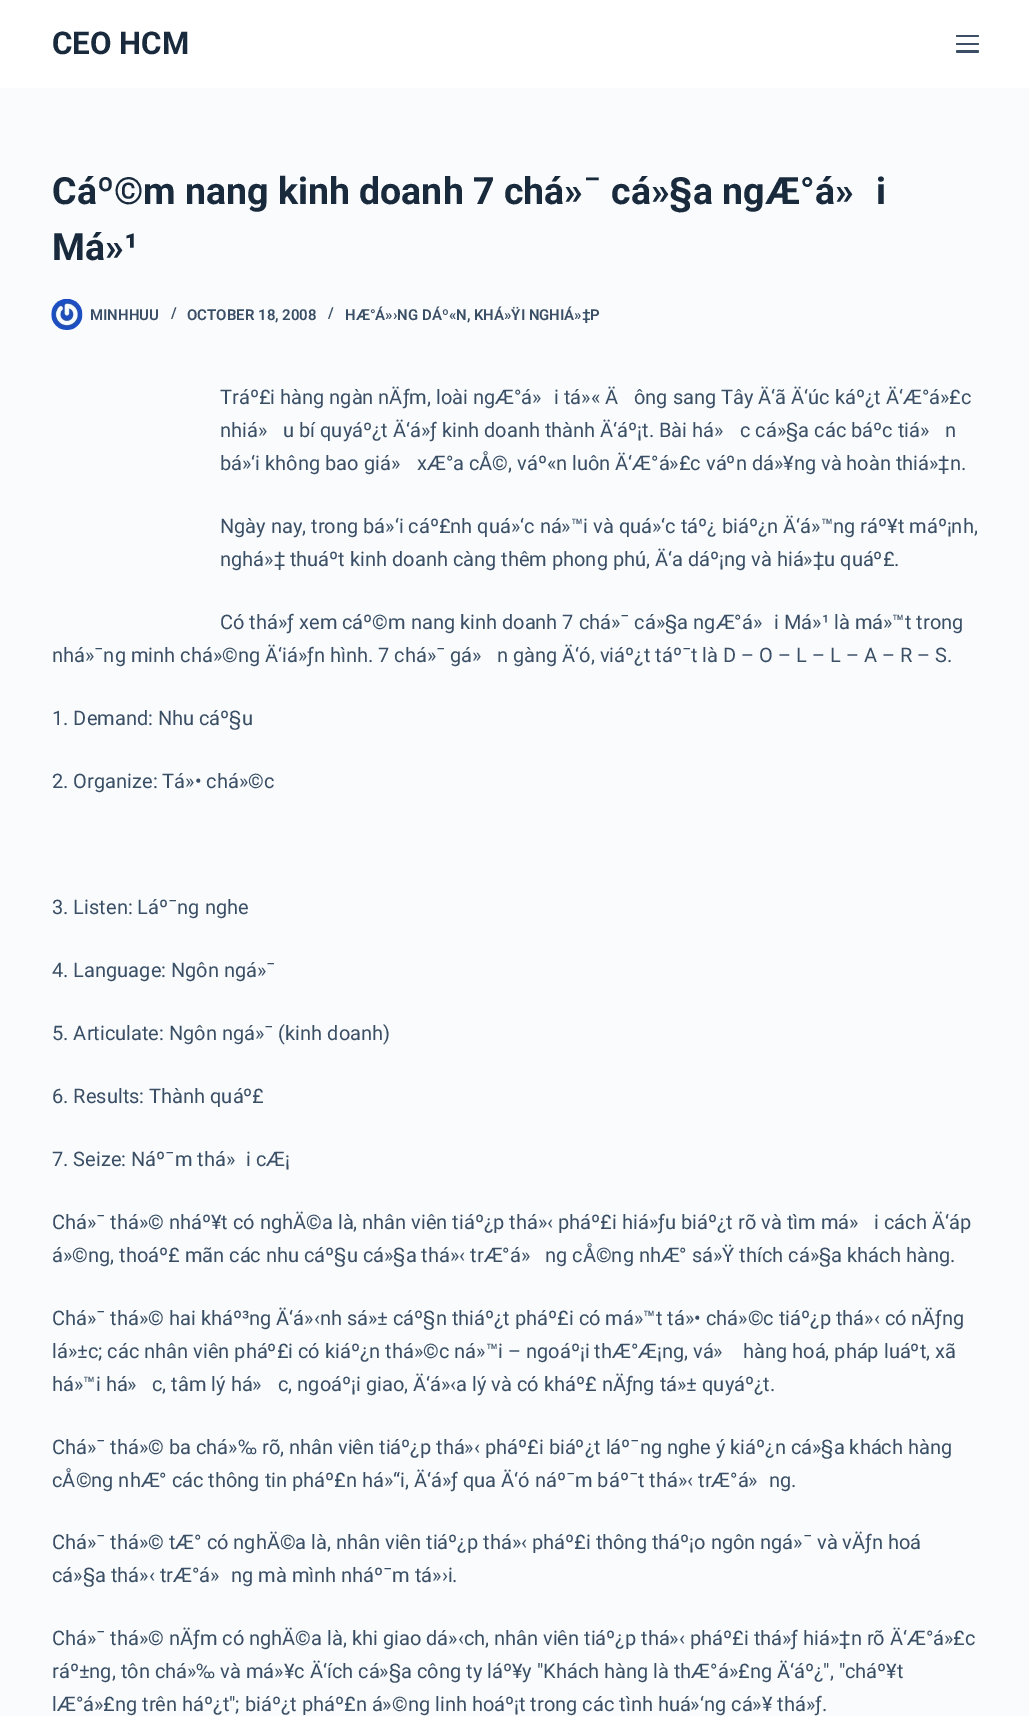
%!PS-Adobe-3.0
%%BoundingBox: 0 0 1029 1716
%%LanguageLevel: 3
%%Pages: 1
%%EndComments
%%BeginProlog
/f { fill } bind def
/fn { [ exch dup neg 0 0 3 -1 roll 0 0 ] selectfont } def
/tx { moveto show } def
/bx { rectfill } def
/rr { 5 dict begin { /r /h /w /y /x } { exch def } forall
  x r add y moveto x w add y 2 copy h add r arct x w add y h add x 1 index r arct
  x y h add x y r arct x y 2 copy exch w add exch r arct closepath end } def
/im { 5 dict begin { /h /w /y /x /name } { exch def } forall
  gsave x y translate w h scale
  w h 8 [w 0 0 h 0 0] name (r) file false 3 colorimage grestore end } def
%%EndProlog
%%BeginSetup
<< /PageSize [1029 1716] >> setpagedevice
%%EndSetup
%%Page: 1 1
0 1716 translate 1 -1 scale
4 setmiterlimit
0.98 0.984 0.988 setrgbcolor
0 0 1029 1716 bx
1 setgray
0 0 1029 88 bx
/Roboto-Bold 31.25 fn
0.098 0.165 0.239 setrgbcolor
(CEO HCM) 52 54 tx
0.227 0.31 0.4 setrgbcolor
956 35 23 2 1 rr f
956 43 23 2 1 rr f
956 50 23 3 1.5 rr f
/Roboto-Bold 37.5 fn
0.098 0.165 0.239 setrgbcolor
(Cáº©m nang kinh doanh 7 chá»¯ cá»§a ngÆ°á») 52 204 tx
(i) 876 204 tx
(Má»¹) 52 260 tx
(image0.raw) 51 298 32 32 im
/Roboto-SemiBold 15 fn
0.227 0.31 0.4 setrgbcolor
(MINHHUU) 90 320 tx
(/) 171 318 tx
(OCTOBER 18, 2008) 187 320 tx
(/) 328 318 tx
(HÆ°Á»›NG DÁº«N, KHÁ»ŸI NGHIÁ»‡P) 345 320 tx
/Roboto-Regular 20 fn
(Tráº£i hàng ngàn nÄƒm, loài ngÆ°á») 220 404 tx
(i tá»« Ä) 554 404 tx
(ông sang Tây Ä‘ã Ä‘úc káº¿t Ä‘Æ°á»£c) 634 404 tx
(nhiá») 220 437 tx
(u bí quyáº¿t Ä‘á»ƒ kinh doanh thành Ä‘áº¡t. Bài há») 283 437 tx
(c cá»§a các báºc tiá») 740 437 tx
(n) 945 437 tx
(bá»‘i không bao giá») 220 470 tx
(xÆ°a cÅ©, váº«n luôn Ä‘Æ°á»£c váºn dá»¥ng và hoàn thiá»‡n.) 417 470 tx
(Ngày nay, trong bá»‘i cáº£nh quá»‘c ná»™i và quá»‘c táº¿ biáº¿n Ä‘á»™ng ráº¥t máº¡nh,) 220 533 tx
(nghá»‡ thuáºt kinh doanh càng thêm phong phú, Ä‘a dáº¡ng và hiá»‡u quáº£.) 220 566 tx
(Có thá»ƒ xem cáº©m nang kinh doanh 7 chá»¯ cá»§a ngÆ°á») 220 629 tx
(i Má»¹ là má»™t trong) 774 629 tx
(nhá»¯ng minh chá»©ng Ä‘iá»ƒn hình. 7 chá»¯ gá») 52 662 tx
(n gàng Ä‘ó, viáº¿t táº¯t là D – O – L – L – A – R – S.) 497 662 tx
(1. Demand: Nhu cáº§u) 52 725 tx
(2. Organize: Tá»• chá»©c) 52 788 tx
(3. Listen: Láº¯ng nghe) 52 914 tx
(4. Language: Ngôn ngá»¯) 52 977 tx
(5. Articulate: Ngôn ngá»¯ \(kinh doanh\)) 52 1040 tx
(6. Results: Thành quáº£) 52 1103 tx
(7. Seize: Náº¯m thá») 52 1166 tx
(i cÆ¡) 246 1166 tx
(Chá»¯ thá»© nháº¥t có nghÄ©a là, nhân viên tiáº¿p thá»‹ pháº£i hiá»ƒu biáº¿t rõ và tìm má») 52 1229 tx
(i cách Ä‘áp) 874 1229 tx
(á»©ng, thoáº£ mãn các nhu cáº§u cá»§a thá»‹ trÆ°á») 52 1262 tx
(ng cÅ©ng nhÆ° sá»Ÿ thích cá»§a khách hàng.) 545 1262 tx
(Chá»¯ thá»© hai kháº³ng Ä‘á»‹nh sá»± cáº§n thiáº¿t pháº£i có má»™t tá»• chá»©c tiáº¿p thá»‹ có nÄƒng) 52 1325 tx
(lá»±c; các nhân viên pháº£i có kiáº¿n thá»©c ná»™i – ngoáº¡i thÆ°Æ¡ng, vá») 52 1358 tx
(hàng hoá, pháp luáºt, xã) 743 1358 tx
(há»™i há») 52 1391 tx
(c, tâm lý há») 152 1391 tx
(c, ngoáº¡i giao, Ä‘á»‹a lý và có kháº£ nÄƒng tá»± quyáº¿t.) 278 1391 tx
(Chá»¯ thá»© ba chá»‰ rõ, nhân viên tiáº¿p thá»‹ pháº£i biáº¿t láº¯ng nghe ý kiáº¿n cá»§a khách hàng) 52 1454 tx
(cÅ©ng nhÆ° các thông tin pháº£n há»“i, Ä‘á»ƒ qua Ä‘ó náº¯m báº¯t thá»‹ trÆ°á») 52 1487 tx
(ng.) 769 1487 tx
(Chá»¯ thá»© tÆ° có nghÄ©a là, nhân viên tiáº¿p thá»‹ pháº£i thông tháº¡o ngôn ngá»¯ và vÄƒn hoá) 52 1549 tx
(cá»§a thá»‹ trÆ°á») 52 1582 tx
(ng mà mình nháº¯m tá»›i.) 231 1582 tx
(Chá»¯ thá»© nÄƒm có nghÄ©a là, khi giao dá»‹ch, nhân viên tiáº¿p thá»‹ pháº£i thá»ƒ hiá»‡n rõ Ä‘Æ°á»£c) 52 1645 tx
(ráº±ng, tôn chá»‰ và má»¥c Ä‘ích cá»§a công ty láº¥y "Khách hàng là thÆ°á»£ng Ä‘áº¿", "cháº¥t) 52 1678 tx
(lÆ°á»£ng trên háº¿t"; biáº¿t pháº£n á»©ng linh hoáº¡t trong các tình huá»‘ng cá»¥ thá»ƒ.) 52 1711 tx
showpage
%%EOF
